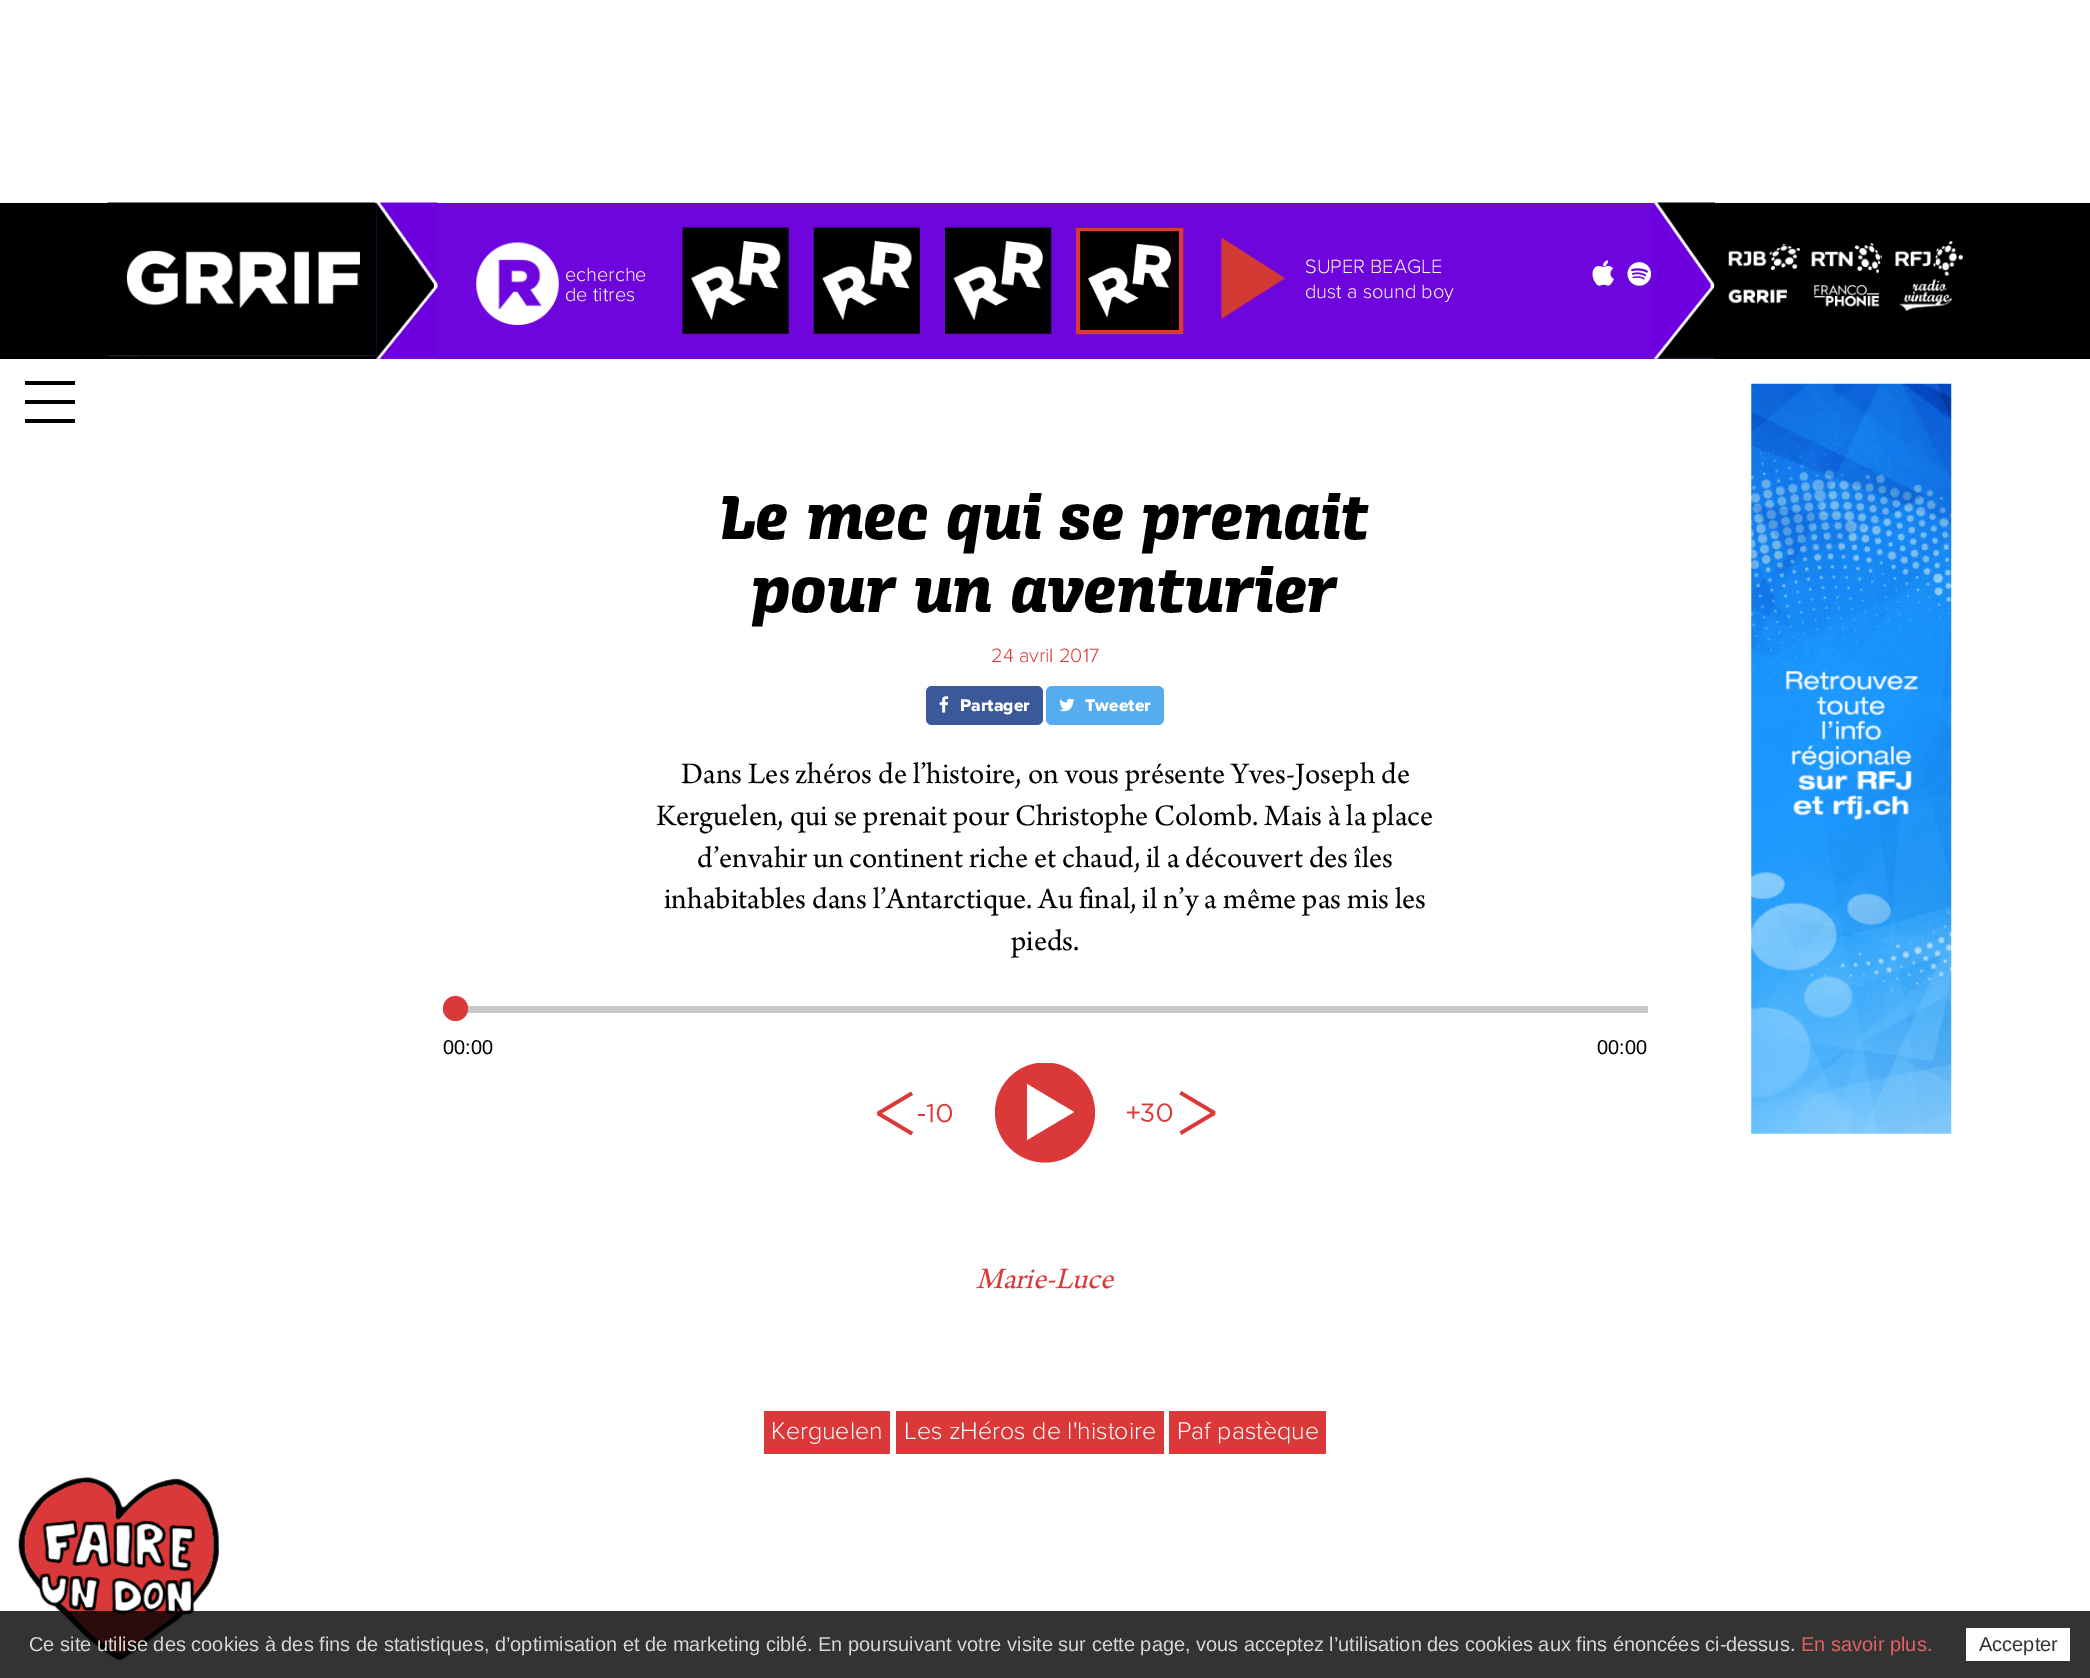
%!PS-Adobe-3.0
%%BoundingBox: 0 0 2090 1678
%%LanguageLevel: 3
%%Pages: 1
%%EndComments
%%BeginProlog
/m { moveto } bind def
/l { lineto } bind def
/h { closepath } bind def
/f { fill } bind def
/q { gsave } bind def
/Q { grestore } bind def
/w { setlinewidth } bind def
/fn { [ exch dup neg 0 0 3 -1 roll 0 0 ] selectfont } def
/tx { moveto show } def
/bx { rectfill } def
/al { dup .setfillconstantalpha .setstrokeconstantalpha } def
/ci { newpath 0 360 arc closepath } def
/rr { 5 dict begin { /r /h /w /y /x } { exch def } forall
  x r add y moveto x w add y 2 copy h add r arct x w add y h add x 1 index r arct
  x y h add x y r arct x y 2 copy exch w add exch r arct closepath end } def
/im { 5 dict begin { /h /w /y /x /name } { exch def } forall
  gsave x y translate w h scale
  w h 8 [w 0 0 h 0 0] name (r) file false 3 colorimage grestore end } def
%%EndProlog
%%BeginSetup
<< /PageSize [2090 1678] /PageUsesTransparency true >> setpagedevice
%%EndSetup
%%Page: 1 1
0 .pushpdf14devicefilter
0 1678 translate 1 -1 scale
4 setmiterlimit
1 setgray
0 0 2090 1678 bx
0 setgray
0 203 2090 156 bx
0.427 0.02 0.863 setrgbcolor
376 203 1338 156 bx
(image0.raw) 107 202 268 155 im
(image1.raw) 376 202 62 157 im
(image2.raw) 476 242 83 83 im
/ProximaNova-Light 20 fn
1 setgray
(echerche) 565 281 tx
(de titres) 565 301 tx
(image3.raw) 682 227 107 107 im
(image4.raw) 813 227 107 107 im
(image5.raw) 945 227 107 107 im
0.859 0.224 0.224 setrgbcolor
4 w
1078 230 103 102 rectstroke
(image6.raw) 1080 231 99 99 im
(image7.raw) 1221 237 64 82 im
1 setgray
(SUPER BEAGLE) 1305 273 tx
(dust a sound boy) 1305 298 tx
(image8.raw) 1592 260 22 26 im
(image9.raw) 1627 262 25 24 im
(image10.raw) 1653 202 62 157 im
(image11.raw) 1728 244 72 26 im
(image12.raw) 1811 243 71 30 im
(image13.raw) 1895 241 68 35 im
(image14.raw) 1728 289 59 15 im
(image15.raw) 1814 285 66 22 im
(image16.raw) 1899 279 53 32 im
(image17.raw) 1751 383 201 751 im
0 setgray
25 381 50 4 bx
25 400 50 4 bx
25 419 50 4 bx
/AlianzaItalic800-Regular 66.25 fn
(Le mec qui se prenait) 720 539 tx
(pour un aventurier) 752 612 tx
/ProximaNova-Light 20 fn
0.859 0.224 0.224 setrgbcolor
(24 avril 2017) 991 662 tx
0.231 0.349 0.596 setrgbcolor
926 686 117 39 6 rr f
(image18.raw) 939 696 10 17 im
/ProximaNova-ExtraBold 17.5 fn
1 setgray
(Partager) 960 711 tx
0.333 0.675 0.933 setrgbcolor
1046 686 118 39 6 rr f
(image19.raw) 1059 698 16 14 im
1 setgray
(Tweeter) 1085 711 tx
/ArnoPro-Regular 31.25 fn
0 setgray
(Dans Les zhéros de l’histoire, on vous présente Yves-Joseph de) 681 783 tx
(Kerguelen, qui se prenait pour Christophe Colomb. Mais à la place) 656 825 tx
(d’envahir un continent riche et chaud, il a découvert des îles) 697 867 tx
(inhabitables dans l’Antarctique. Au final, il n’y a même pas mis les) 664 908 tx
(pieds.) 1011 950 tx
0.784 setgray
443 1006 1205 7 bx
0.859 0.224 0.224 setrgbcolor
455.5 1008.5 12.5 ci f
/LiberationSans-Regular 20 fn
0 setgray
(00:00) 443 1054 tx
(00:00) 1597 1054 tx
(image20.raw) 877 1091 76 45 im
q
995 1063 100 100 rectclip
0.859 0.224 0.224 setrgbcolor
1045 1112.5 50 ci f
Q
1 setgray
1027 1140 m 1027 1084 l 1074 1112 l h f
(image21.raw) 1126 1091 90 44 im
/ArnoPro-Italic 31.25 fn
0.859 0.224 0.224 setrgbcolor
(Marie-Luce) 976 1288 tx
764 1411 126 43 bx
/ProximaNova-Light 25 fn
1 setgray
(Kerguelen) 771 1439 tx
0.859 0.224 0.224 setrgbcolor
896 1411 268 43 bx
1 setgray
(Les zHéros de l'histoire) 904 1439 tx
0.859 0.224 0.224 setrgbcolor
1169 1411 157 43 bx
1 setgray
(Paf pastèque) 1177 1439 tx
(image22.raw) 18 1477 201 184 im
0.8 al
0 setgray
0 1611 2090 67 bx
/LiberationSans-Regular 20 fn
1 al
0.839 setgray
(Ce site utilise des cookies à des fins de statistiques, d’optimisation et de marketing ciblé. En poursuivant votre visite sur cette page, vous acceptez l’utilisation des cookies aux fins énoncées ci-dessus.) 29 1651 tx
0.886 0.38 0.38 setrgbcolor
(En savoir plus.) 1801 1651 tx
1 setgray
1966 1628 104 33 bx
0.2 setgray
(Accepter) 1979 1651 tx
.poppdf14devicefilter showpage
%%EOF
